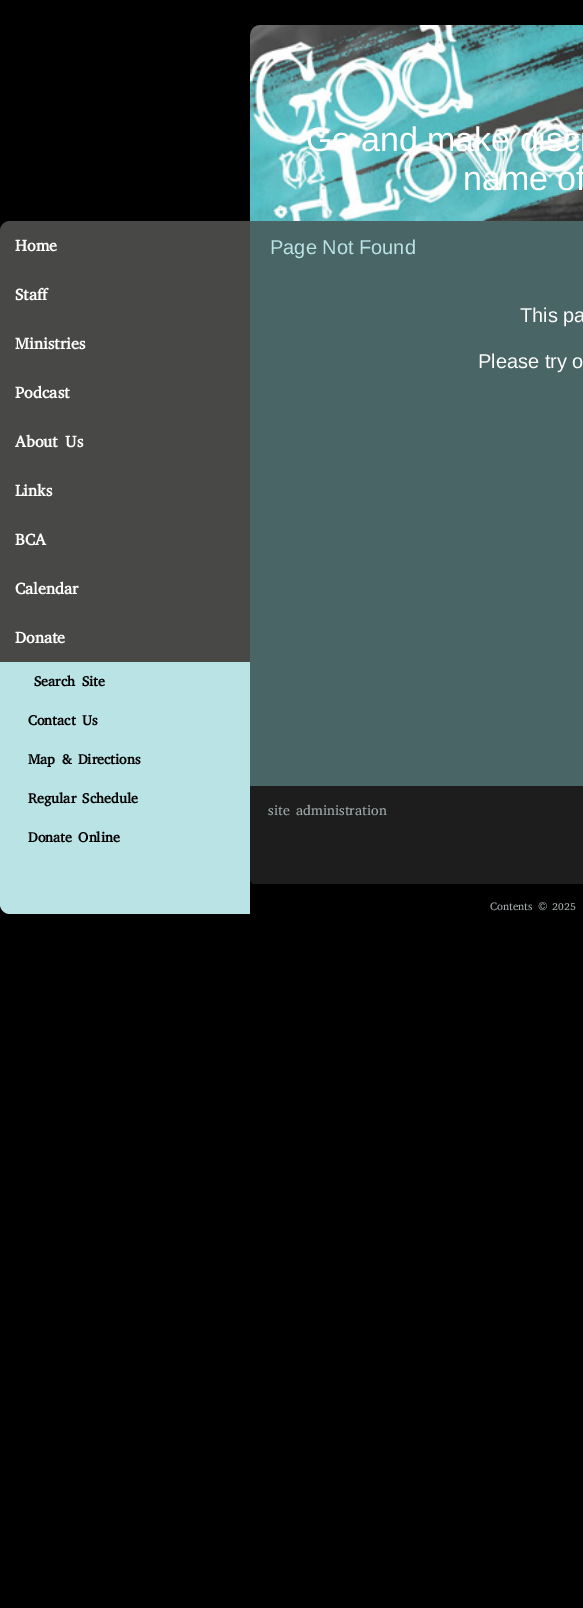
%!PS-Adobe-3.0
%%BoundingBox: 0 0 583 1608
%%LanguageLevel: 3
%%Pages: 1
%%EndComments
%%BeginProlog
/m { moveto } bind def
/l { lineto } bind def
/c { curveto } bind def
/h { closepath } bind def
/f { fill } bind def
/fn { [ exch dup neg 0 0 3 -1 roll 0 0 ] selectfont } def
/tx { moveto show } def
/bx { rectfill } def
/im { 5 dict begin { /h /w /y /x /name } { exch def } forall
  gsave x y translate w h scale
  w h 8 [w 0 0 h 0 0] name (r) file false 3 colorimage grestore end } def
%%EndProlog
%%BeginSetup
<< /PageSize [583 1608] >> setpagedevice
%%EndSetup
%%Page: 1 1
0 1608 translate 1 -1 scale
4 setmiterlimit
0 setgray
0 0 583 1608 bx
(image0.raw) 250 25 333 196 im
/LiberationSans-Regular 34 fn
1 setgray
(Go and make disci) 306 151 tx
(name of) 463 190 tx
0.282 0.282 0.275 setrgbcolor
10 221 m 250 221 l 250 270 l 0 270 l 0 231 l 0 225.5 4.5 221 10 221 c h f
/AbyssinicaSIL-Bold 16 fn
1 setgray
(Home) 15 251 tx
0.282 0.282 0.275 setrgbcolor
0 270 250 392 bx
1 setgray
(Staff) 15 300 tx
(Ministries) 15 349 tx
(Podcast) 15 398 tx
(About Us) 15 447 tx
(Links) 15 496 tx
(BCA) 15 545 tx
(Calendar) 15 594 tx
(Donate) 15 643 tx
0.725 0.89 0.898 setrgbcolor
0 662 250 195 bx
/AbyssinicaSIL-Bold 14 fn
0 setgray
(Search Site) 34 686 tx
(Contact Us) 28 725 tx
(Map & Directions) 28 764 tx
(Regular Schedule) 28 803 tx
(Donate Online) 28 842 tx
0.725 0.89 0.898 setrgbcolor
0 857 m 250 857 l 250 914 l 10 914 l 4.5 914 0 909.5 0 904 c h f
0.286 0.396 0.396 setrgbcolor
250 221 333 565 bx
/LiberationSans-Regular 20 fn
0.725 0.89 0.898 setrgbcolor
(Page Not Found) 270 254 tx
1 setgray
(This pa) 520 322 tx
(Please try o) 478 368 tx
0.114 setgray
250 786 m 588 786 l 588 879 l 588 882 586 884 583 884 c 255 884 l 252 884 250 882 250 879 c h f
/AbyssinicaSIL-Regular 14 fn
0.639 0.675 0.675 setrgbcolor
(site administration) 268 815 tx
/AbyssinicaSIL-Regular 11 fn
(Contents © 2025) 490 910 tx
showpage
%%EOF
